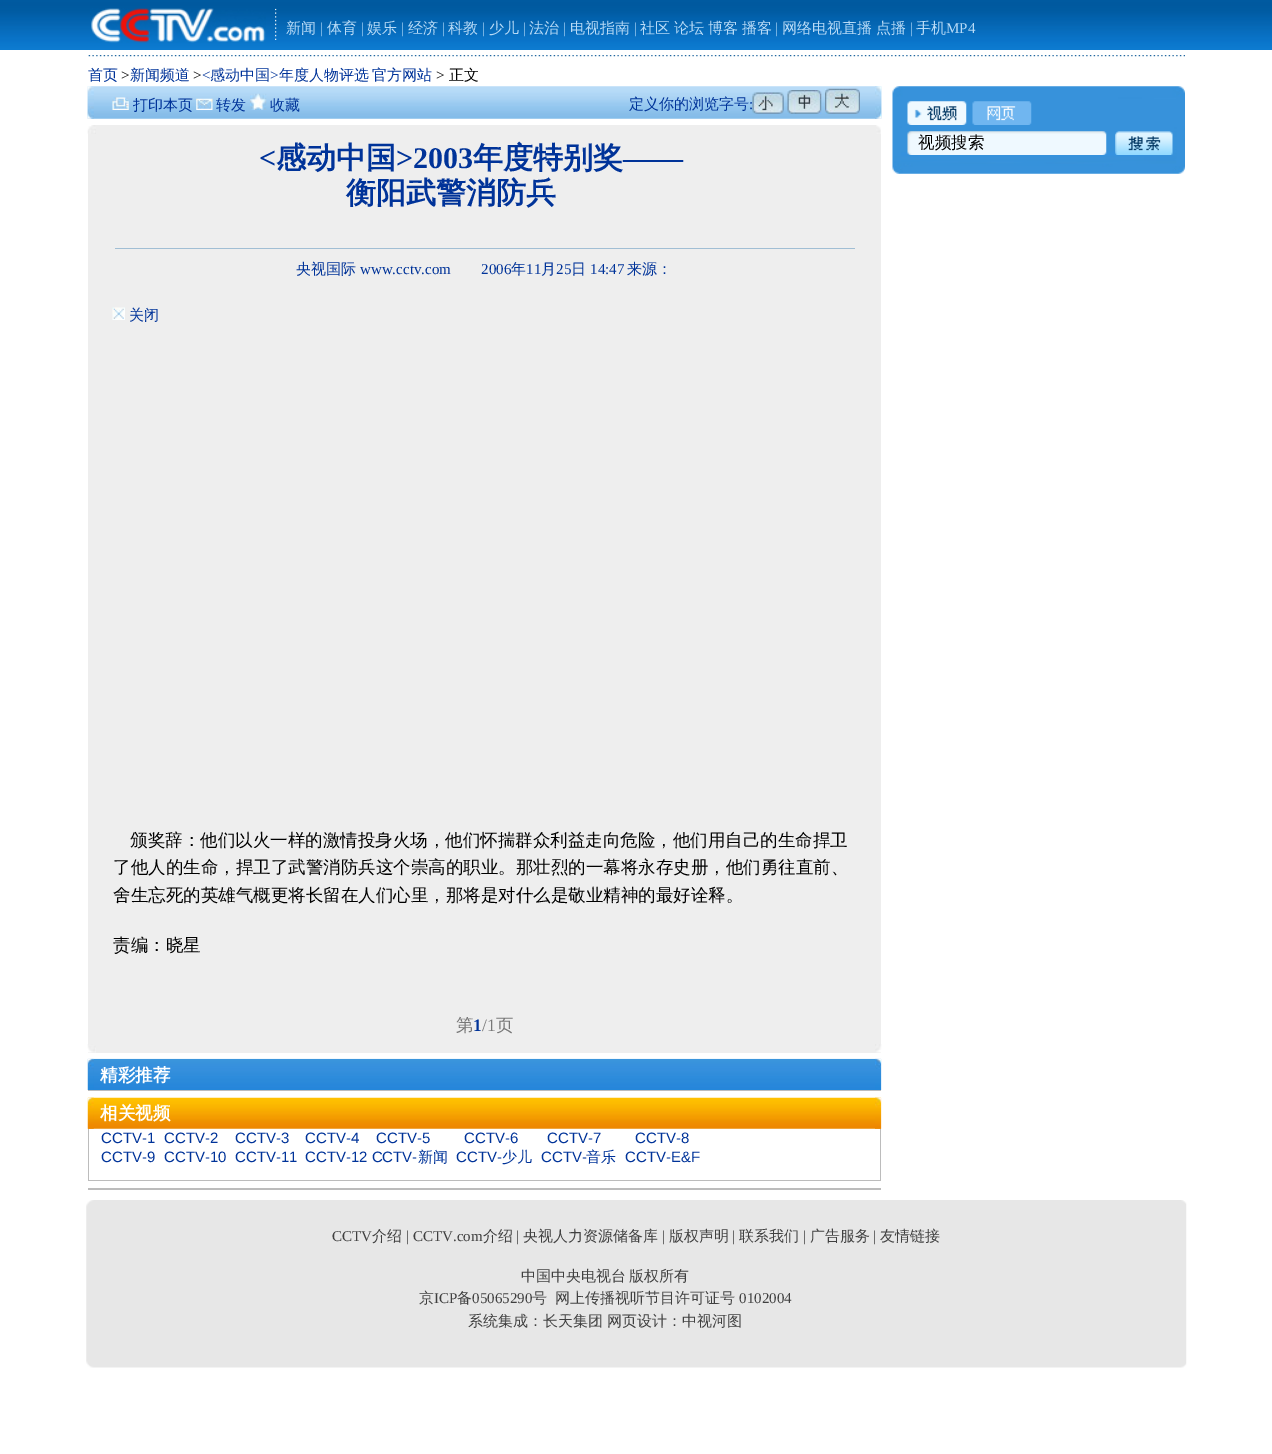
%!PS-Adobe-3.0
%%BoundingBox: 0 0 1272 1454
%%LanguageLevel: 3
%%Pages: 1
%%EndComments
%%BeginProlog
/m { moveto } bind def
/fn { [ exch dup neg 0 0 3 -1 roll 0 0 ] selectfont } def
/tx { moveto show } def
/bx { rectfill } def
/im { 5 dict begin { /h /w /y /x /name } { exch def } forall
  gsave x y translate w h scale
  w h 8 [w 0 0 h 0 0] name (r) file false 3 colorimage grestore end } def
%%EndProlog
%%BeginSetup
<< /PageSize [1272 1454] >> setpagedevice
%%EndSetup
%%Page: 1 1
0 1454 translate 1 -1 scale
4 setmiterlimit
1 setgray
0 0 1272 1454 bx
(image0.raw) 0 0 1272 50 im
(image1.raw) 90 8 176 35 im
(image2.raw) 275 8 2 32 im
/WenQuanYiZenHei-Medium 15 fn
0.722 0.859 0.969 setrgbcolor
(新闻) 286 33 tx
/LiberationSerif-Regular 15 fn
0.604 0.792 0.941 setrgbcolor
(|) 320 33 tx
/WenQuanYiZenHei-Medium 15 fn
0.722 0.859 0.969 setrgbcolor
(体育) 327 33 tx
/LiberationSerif-Regular 15 fn
0.604 0.792 0.941 setrgbcolor
(|) 361 33 tx
/WenQuanYiZenHei-Medium 15 fn
0.722 0.859 0.969 setrgbcolor
(娱乐) 367 33 tx
/LiberationSerif-Regular 15 fn
0.604 0.792 0.941 setrgbcolor
(|) 401 33 tx
/WenQuanYiZenHei-Medium 15 fn
0.722 0.859 0.969 setrgbcolor
(经济) 408 33 tx
/LiberationSerif-Regular 15 fn
0.604 0.792 0.941 setrgbcolor
(|) 442 33 tx
/WenQuanYiZenHei-Medium 15 fn
0.722 0.859 0.969 setrgbcolor
(科教) 448 33 tx
/LiberationSerif-Regular 15 fn
0.604 0.792 0.941 setrgbcolor
(|) 482 33 tx
/WenQuanYiZenHei-Medium 15 fn
0.722 0.859 0.969 setrgbcolor
(少儿) 489 33 tx
/LiberationSerif-Regular 15 fn
0.604 0.792 0.941 setrgbcolor
(|) 523 33 tx
/WenQuanYiZenHei-Medium 15 fn
0.722 0.859 0.969 setrgbcolor
(法治) 529 33 tx
/LiberationSerif-Regular 15 fn
0.604 0.792 0.941 setrgbcolor
(|) 563 33 tx
/WenQuanYiZenHei-Medium 15 fn
0.722 0.859 0.969 setrgbcolor
(电视指南) 570 33 tx
/LiberationSerif-Regular 15 fn
0.604 0.792 0.941 setrgbcolor
(|) 634 33 tx
/WenQuanYiZenHei-Medium 15 fn
0.722 0.859 0.969 setrgbcolor
(社区) 640 33 tx
(论坛) 674 33 tx
(博客) 708 33 tx
(播客) 742 33 tx
/LiberationSerif-Regular 15 fn
0.604 0.792 0.941 setrgbcolor
(|) 775 33 tx
/WenQuanYiZenHei-Medium 15 fn
0.722 0.859 0.969 setrgbcolor
(网络电视直播) 782 33 tx
(点播) 876 33 tx
/LiberationSerif-Regular 15 fn
0.604 0.792 0.941 setrgbcolor
(|) 910 33 tx
/WenQuanYiZenHei-Medium 15 fn
0.722 0.859 0.969 setrgbcolor
(手机) 916 33 tx
/LiberationSerif-Regular 15 fn
(MP4) 946 33 tx
(image3.raw) 88 55 1097 2 im
/WenQuanYiZenHei-Medium 15 fn
0 0.2 0.6 setrgbcolor
(首页) 88 80 tx
/LiberationSerif-Regular 15 fn
0 setgray
(>) 121 80 tx
/WenQuanYiZenHei-Medium 15 fn
0 0.2 0.6 setrgbcolor
(新闻频道) 130 80 tx
/LiberationSerif-Regular 15 fn
0 setgray
(>) 193 80 tx
0 0.2 0.6 setrgbcolor
(<) 202 80 tx
/WenQuanYiZenHei-Medium 15 fn
(感动中国) 210 80 tx
/LiberationSerif-Regular 15 fn
(>) 270 80 tx
/WenQuanYiZenHei-Medium 15 fn
279 80 m -1 0 32 (年度人物评选 官方网站) widthshow
/LiberationSerif-Regular 15 fn
0 setgray
(>) 436 80 tx
/WenQuanYiZenHei-Medium 15 fn
(正文) 449 80 tx
(image4.raw) 87 86 795 33 im
(image5.raw) 87 86 7 33 im
(image6.raw) 112 97 17 13 im
0 0.2 0.6 setrgbcolor
(打印本页) 133 110 tx
(image7.raw) 196 98 17 12 im
(转发) 216 110 tx
(image8.raw) 250 93 17 17 im
(收藏) 270 110 tx
0.933 setgray
88 125 793 928 bx
(image9.raw) 112 307 13 13 im
0 0.2 0.6 setrgbcolor
(关闭) 129 320 tx
(image10.raw) 875 86 7 33 im
(定义你的浏览字号) 629 109 tx
/LiberationSerif-Regular 15 fn
(:) 749 109 tx
(image11.raw) 752 92 32 22 im
(image12.raw) 787 90 35 24 im
(image13.raw) 825 88 35 26 im
(image14.raw) 87 125 9 9 im
(image15.raw) 876 125 5 9 im
/LiberationSerif-Bold 30 fn
(<) 259 168 tx
/WenQuanYiZenHei-Bold 30 fn
(感动中国) 276 168 tx
/LiberationSerif-Bold 30 fn
(>2003) 396 168 tx
/WenQuanYiZenHei-Bold 30 fn
(年度特别奖) 473 168 tx
/LiberationSerif-Bold 30 fn
(——) 623 168 tx
/WenQuanYiZenHei-Bold 30 fn
(衡阳武警消防兵) 346 203 tx
0.631 0.745 0.831 setrgbcolor
115 248 740 1 bx
/WenQuanYiZenHei-Medium 15 fn
0 0.2 0.6 setrgbcolor
(央视国际) 296 274 tx
/LiberationSerif-Regular 15 fn
(www.cctv.com) 360 274 tx
(2006) 481 274 tx
/WenQuanYiZenHei-Medium 15 fn
(年) 511 274 tx
/LiberationSerif-Regular 15 fn
(11) 526 274 tx
/WenQuanYiZenHei-Medium 15 fn
(月) 541 274 tx
/LiberationSerif-Regular 15 fn
(25) 556 274 tx
/WenQuanYiZenHei-Medium 15 fn
(日) 571 274 tx
/LiberationSerif-Regular 15 fn
(14:47) 590 274 tx
/WenQuanYiZenHei-Medium 15 fn
(来源：) 627 274 tx
/WenQuanYiZenHei-Medium 17.5 fn
0 setgray
(颁奖辞：他们以火一样的激情投身火场，他们怀揣群众利益走向危险，他们用自己的生命捍卫) 130 846 tx
(了他人的生命，捍卫了武警消防兵这个崇高的职业。那壮烈的一幕将永存史册，他们勇往直前、) 113 873 tx
(舍生忘死的英雄气概更将长留在人们心里，那将是对什么是敬业精神的最好诠释。) 113 901 tx
(责编：晓星) 113 951 tx
0.467 setgray
(第) 456 1031 tx
/LiberationSerif-Bold 17.5 fn
0 0.2 0.6 setrgbcolor
(1) 473 1031 tx
/LiberationSerif-Regular 17.5 fn
0.467 setgray
(/1) 482 1031 tx
/WenQuanYiZenHei-Medium 17.5 fn
(页) 496 1031 tx
(image16.raw) 87 1044 9 9 im
(image17.raw) 875 1044 7 9 im
(image18.raw) 87 1058 795 32 im
(image19.raw) 87 1058 7 32 im
/WenQuanYiZenHei-Bold 17.5 fn
1 setgray
(精彩推荐) 100 1081 tx
(image20.raw) 875 1058 7 32 im
0.737 setgray
88 1090 793 1 bx
(image21.raw) 87 1097 795 32 im
(image22.raw) 87 1097 7 32 im
1 setgray
(相关视频) 100 1119 tx
(image23.raw) 875 1097 7 32 im
0.737 setgray
880 1129 1 52 bx
88 1180 793 1 bx
88 1129 1 52 bx
/LiberationSans-Regular 15 fn
0 0.2 0.6 setrgbcolor
(CCTV-1) 101 1143 tx
(CCTV-2) 164 1143 tx
(CCTV-3) 235 1143 tx
(CCTV-4) 305 1143 tx
(CCTV-5) 376 1143 tx
(CCTV-6) 464 1143 tx
(CCTV-7) 547 1143 tx
(CCTV-8) 635 1143 tx
(CCTV-9) 101 1162 tx
(CCTV-10) 164 1162 tx
(CCTV-11) 235 1162 tx
(CCTV-12 CCTV-) 305 1162 tx
/WenQuanYiZenHei-Medium 15 fn
(新闻) 418 1162 tx
/LiberationSans-Regular 15 fn
(CCTV-) 456 1162 tx
/WenQuanYiZenHei-Medium 15 fn
(少儿) 502 1162 tx
/LiberationSans-Regular 15 fn
(CCTV-) 541 1162 tx
/WenQuanYiZenHei-Medium 15 fn
(音乐) 586 1162 tx
/LiberationSans-Regular 15 fn
(CCTV-E&F) 625 1162 tx
0.737 setgray
88 1188 793 2 bx
(image24.raw) 892 86 293 88 im
(image25.raw) 907 101 60 24 im
(image26.raw) 972 101 60 24 im
(image27.raw) 907 131 200 24 im
/WenQuanYiZenHei-Medium 16.5 fn
0 setgray
(视频搜索) 918 148 tx
(image28.raw) 1115 131 58 24 im
(image29.raw) 86 1200 1101 168 im
/LiberationSerif-Regular 15 fn
0.251 setgray
(CCTV) 332 1241 tx
/WenQuanYiZenHei-Medium 15 fn
(介绍) 372 1241 tx
/LiberationSerif-Regular 15 fn
(| CCTV.com) 406 1241 tx
/WenQuanYiZenHei-Medium 15 fn
(介绍) 483 1241 tx
/LiberationSerif-Regular 15 fn
(|) 516 1241 tx
/WenQuanYiZenHei-Medium 15 fn
(央视人力资源储备库) 523 1241 tx
/LiberationSerif-Regular 15 fn
(|) 662 1241 tx
/WenQuanYiZenHei-Medium 15 fn
(版权声明) 669 1241 tx
/LiberationSerif-Regular 15 fn
(|) 732 1241 tx
/WenQuanYiZenHei-Medium 15 fn
(联系我们) 739 1241 tx
/LiberationSerif-Regular 15 fn
(|) 803 1241 tx
/WenQuanYiZenHei-Medium 15 fn
(广告服务) 810 1241 tx
/LiberationSerif-Regular 15 fn
(|) 873 1241 tx
/WenQuanYiZenHei-Medium 15 fn
(友情链接) 880 1241 tx
521 1281 m -1 0 32 (中国中央电视台 版权所有) widthshow
(京) 419 1303 tx
/LiberationSerif-Regular 15 fn
(ICP) 434 1303 tx
/WenQuanYiZenHei-Medium 15 fn
(备) 457 1303 tx
/LiberationSerif-Regular 15 fn
(05065290) 472 1303 tx
/WenQuanYiZenHei-Medium 15 fn
(号) 532 1303 tx
(网上传播视听节目许可证号) 555 1303 tx
/LiberationSerif-Regular 15 fn
(0102004) 739 1303 tx
/WenQuanYiZenHei-Medium 15 fn
(系统集成：长天集团) 468 1326 tx
(网页设计：中视河图) 607 1326 tx
showpage
%%EOF
